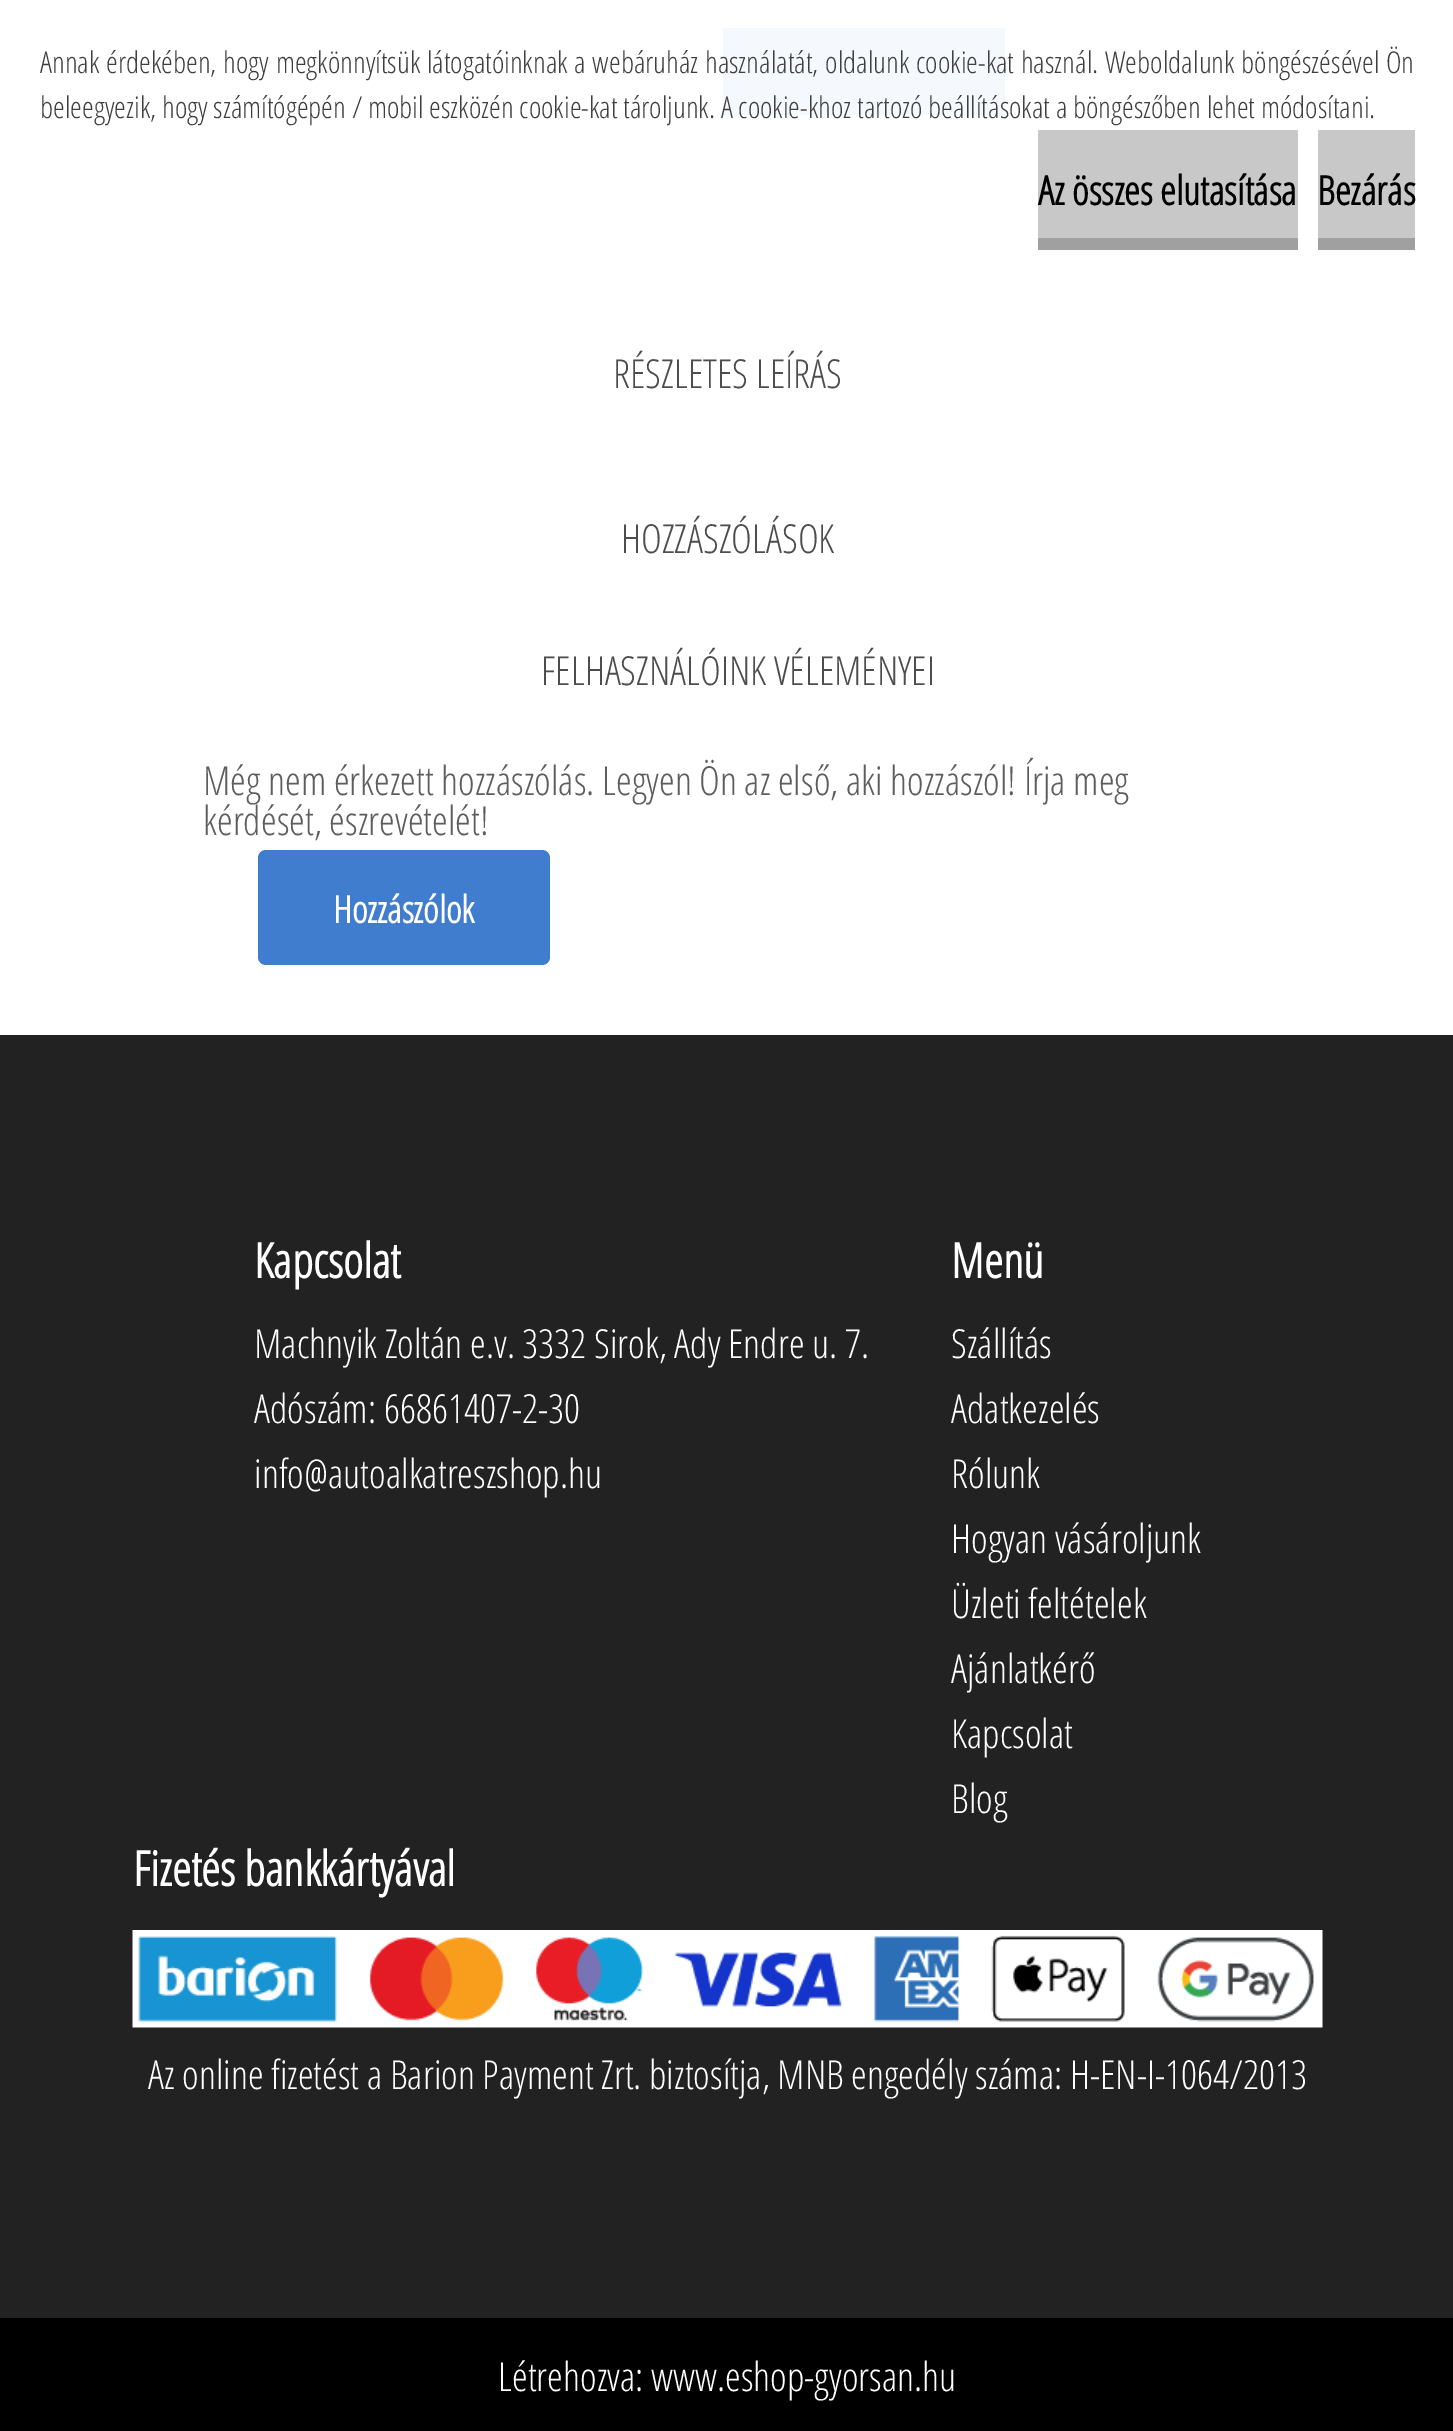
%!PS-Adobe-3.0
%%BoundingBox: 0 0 1453 2431
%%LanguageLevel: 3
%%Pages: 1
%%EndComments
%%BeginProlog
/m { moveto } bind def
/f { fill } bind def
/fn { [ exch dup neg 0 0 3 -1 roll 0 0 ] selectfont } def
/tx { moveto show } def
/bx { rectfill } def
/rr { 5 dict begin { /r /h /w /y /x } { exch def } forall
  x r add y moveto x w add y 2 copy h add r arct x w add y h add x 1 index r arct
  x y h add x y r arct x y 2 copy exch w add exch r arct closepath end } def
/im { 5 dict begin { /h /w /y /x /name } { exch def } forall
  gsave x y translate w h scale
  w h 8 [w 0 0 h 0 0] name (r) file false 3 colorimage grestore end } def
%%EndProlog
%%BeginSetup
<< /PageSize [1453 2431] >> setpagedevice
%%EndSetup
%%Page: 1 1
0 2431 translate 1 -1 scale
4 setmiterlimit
1 setgray
0 0 1453 2431 bx
0.961 0.976 0.992 setrgbcolor
723 28 282 87 bx
/OpenSansCondensed-Light 30 fn
0.247 setgray
40 73 m 1 0 32 (Annak érdekében, hogy megkönnyítsük látogatóinknak a webáruház használatát, oldalunk cookie-kat használ. Weboldalunk böngészésével Ön) widthshow
(beleegyezik, hogy számítógépén / mobil eszközén cookie-kat tároljunk. A cookie-khoz tartozó beállításokat a böngészőben lehet módosítani.) 40 118 tx
0.784 setgray
1038 130 260 108 bx
0.627 setgray
1038 238 260 12 bx
/OpenSansCondensed-Bold 40 fn
0 setgray
(Az összes elutasítása) 1038 205 tx
0.784 setgray
1318 130 97 108 bx
0.627 setgray
1318 238 97 12 bx
0 setgray
(Bezárás) 1317 205 tx
/OpenSansCondensed-Light 40 fn
0.302 setgray
(RÉSZLETES LEÍRÁS) 613 388 tx
(HOZZÁSZÓLÁSOK) 621 553 tx
(FELHASZNÁLÓINK VÉLEMÉNYEI) 541 685 tx
0.365 setgray
(Még nem érkezett hozzászólás. Legyen Ön az első, aki hozzászól! Írja meg) 203 795 tx
(kérdését, észrevételét!) 203 835 tx
0.251 0.49 0.812 setrgbcolor
258 850 292 115 8 rr f
/OpenSansCondensed-Bold 37.5 fn
1 setgray
(Hozzászólok) 333 923 tx
0.133 setgray
0 1035 1453 1283 bx
/OpenSansCondensed-Bold 48 fn
1 setgray
(Kapcsolat) 254 1278 tx
/OpenSansCondensed-Light 40 fn
(Machnyik Zoltán e.v. 3332 Sirok, Ady Endre u. 7.) 254 1358 tx
(Adószám: 66861407-2-30) 254 1423 tx
(info@autoalkatreszshop.hu) 254 1488 tx
/OpenSansCondensed-Bold 48 fn
(Menü) 951 1278 tx
/OpenSansCondensed-Light 40 fn
(Szállítás) 951 1358 tx
(Adatkezelés) 951 1423 tx
(Rólunk) 951 1488 tx
(Hogyan vásároljunk) 951 1553 tx
(Üzleti feltételek) 951 1618 tx
(Ajánlatkérő) 951 1683 tx
(Kapcsolat) 951 1748 tx
(Blog) 951 1813 tx
/OpenSansCondensed-Bold 48 fn
(Fizetés bankkártyával) 133 1886 tx
(image0.raw) 132 1930 1191 98 im
/OpenSansCondensed-Light 40 fn
(Az online fizetést a Barion Payment Zrt. biztosítja, MNB engedély száma: H-EN-I-1064/2013) 148 2089 tx
0 setgray
0 2318 1453 113 bx
1 setgray
(Létrehozva: www.eshop-gyorsan.hu) 498 2391 tx
showpage
%%EOF
